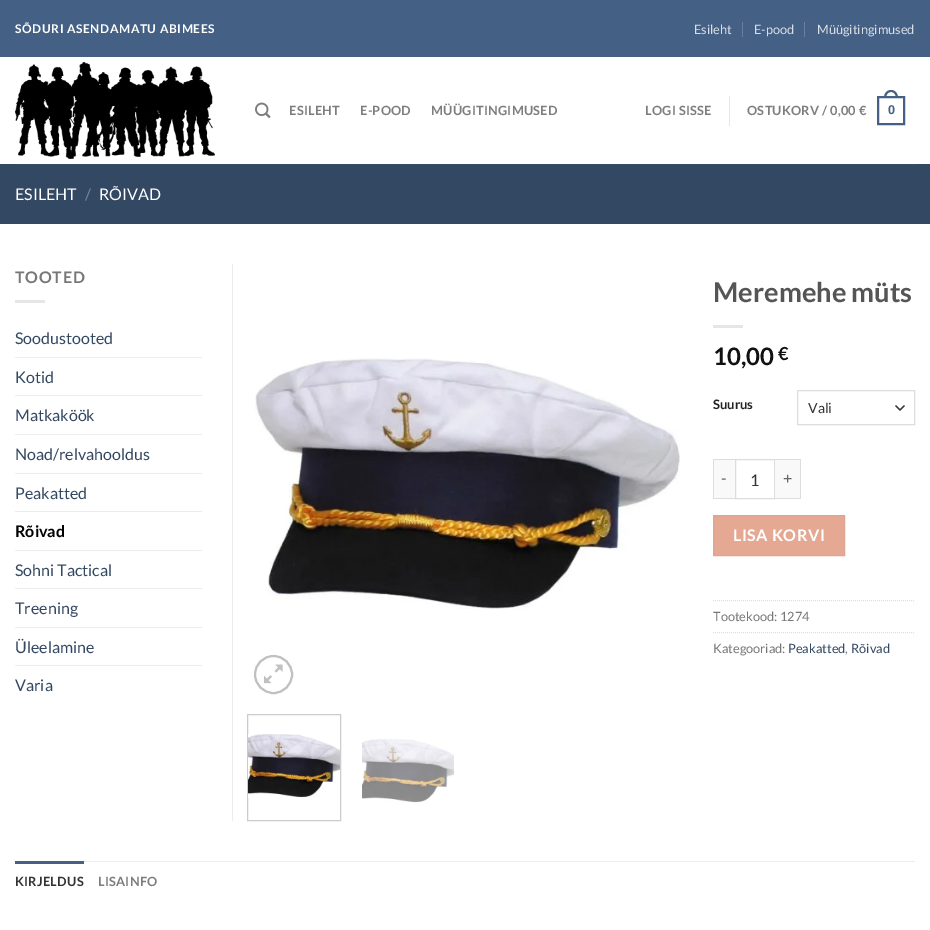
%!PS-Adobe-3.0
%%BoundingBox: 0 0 930 930
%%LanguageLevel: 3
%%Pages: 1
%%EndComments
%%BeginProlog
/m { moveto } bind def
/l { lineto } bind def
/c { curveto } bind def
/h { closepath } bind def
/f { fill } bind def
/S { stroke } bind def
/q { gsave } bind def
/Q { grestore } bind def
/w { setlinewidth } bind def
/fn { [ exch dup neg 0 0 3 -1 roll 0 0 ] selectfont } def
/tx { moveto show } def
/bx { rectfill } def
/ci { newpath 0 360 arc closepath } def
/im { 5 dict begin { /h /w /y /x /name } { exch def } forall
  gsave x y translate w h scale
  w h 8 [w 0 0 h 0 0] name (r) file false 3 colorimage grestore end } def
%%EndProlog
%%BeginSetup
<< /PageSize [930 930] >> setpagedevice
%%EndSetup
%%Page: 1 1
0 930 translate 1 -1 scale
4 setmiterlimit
1 setgray
0 0 930 930 bx
0.267 0.376 0.518 setrgbcolor
0 0 930 57 bx
/Lato-Bold 12 fn
1 setgray
15 33 m 0.6 0 (SÕDURI ASENDAMATU ABIMEES) ashow
/Lato-Regular 12.75 fn
0.855 0.875 0.902 setrgbcolor
(Esileht) 694 34 tx
0.412 0.502 0.616 setrgbcolor
742 22 1 15 bx
0.855 0.875 0.902 setrgbcolor
(E-pood) 754 34 tx
0.412 0.502 0.616 setrgbcolor
804 22 1 15 bx
0.855 0.875 0.902 setrgbcolor
(Müügitingimused) 817 34 tx
(image0.raw) 15 62 200 97 im
(image1.raw) 255 102 16 16 im
/Lato-Bold 12.75 fn
0.49 setgray
289 115 m 0.25 0 (ESILEHT) ashow
360 115 m 0.25 0 (E-POOD) ashow
431 115 m 0.25 0 (MÜÜGITINGIMUSED) ashow
645 115 m 0.25 0 (LOGI SISSE) ashow
0.902 setgray
729 96 1 30 bx
0.49 setgray
747 115 m 0.25 0 (OSTUKORV / 0,00 €) ashow
0.267 0.376 0.518 setrgbcolor
2 w
878 97 26 27 rectstroke
891 90 m 895.5 90 898 94 898 98 c 884 98 l 884 94 886.5 90 891 90 c h 891 92 m 894.5 92 896 95 896 98 c 886 98 l 886 95 887.5 92 891 92 c h eofill
/LiberationSans-Bold 12.75 fn
888 114 m 0.25 0 (0) ashow
0.2 0.282 0.388 setrgbcolor
0 164 930 60 bx
0.227 0.302 0.396 setrgbcolor
15 164 900 1 bx
/Lato-Regular 16 fn
1 setgray
(ESILEHT) 15 200 tx
0.478 0.533 0.604 setrgbcolor
(/) 85 200 tx
1 setgray
(RÕIVAD) 99 200 tx
0.925 setgray
232 264 1 557 bx
/Lato-Bold 16 fn
0.467 setgray
15 283 m 0.75 0 (TOOTED) ashow
0.902 setgray
15 300 30 3 bx
/Lato-Regular 16 fn
0.2 0.282 0.384 setrgbcolor
(Soodustooted) 15 344 tx
0.925 setgray
15 357 187 1 bx
0.2 0.282 0.384 setrgbcolor
(Kotid) 15 383 tx
0.925 setgray
15 395 187 1 bx
0.2 0.282 0.384 setrgbcolor
(Matkaköök) 15 421 tx
0.925 setgray
15 434 187 1 bx
0.2 0.282 0.384 setrgbcolor
(Noad/relvahooldus) 15 460 tx
0.925 setgray
15 473 187 1 bx
0.2 0.282 0.384 setrgbcolor
(Peakatted) 15 499 tx
0.925 setgray
15 511 187 1 bx
/Lato-Bold 16 fn
0 setgray
(Rõivad) 15 537 tx
0.925 setgray
15 550 187 1 bx
/Lato-Regular 16 fn
0.2 0.282 0.384 setrgbcolor
(Sohni Tactical) 15 576 tx
0.925 setgray
15 588 187 1 bx
0.2 0.282 0.384 setrgbcolor
(Treening) 15 614 tx
0.925 setgray
15 627 187 1 bx
0.2 0.282 0.384 setrgbcolor
(Üleelamine) 15 653 tx
0.925 setgray
15 665 187 1 bx
0.2 0.282 0.384 setrgbcolor
(Varia) 15 691 tx
(image2.raw) 254 358 426 251 im
0.753 setgray
273.5 674.5 18.5 ci S
(image3.raw) 264 664 19 20 im
0.8 setgray
1 w
247.5 714.5 93 106 rectstroke
(image4.raw) 248 734 92 64 im
(image5.raw) 362 739 92 64 im
/Lato-Bold 27.25 fn
0.333 setgray
(Meremehe müts) 713 302 tx
0.902 setgray
713 325 30 3 bx
/Lato-Bold 24 fn
0.067 setgray
(10,00) 713 365 tx
/Lato-Bold 18 fn
(€) 778 360 tx
/Lato-Bold 13 fn
0.133 setgray
(Suurus) 713 409 tx
0.2 setgray
1.3 w
1 setlinecap
1 setlinejoin
896 406 m 900 410 l 904 406 l S
0.867 setgray
1 w
0 setlinecap
0 setlinejoin
797.5 390.5 117 34 rectstroke
/Lato-Regular 14 fn
0.2 setgray
(Vali) 808 413 tx
0.976 setgray
714 460 21 38 bx
0.867 setgray
713 459 22 1 bx
713 498 22 1 bx
713 459 1 40 bx
/Lato-Regular 16 fn
0.4 setgray
(-) 721 484 tx
0.867 setgray
735.5 459.5 39 39 rectstroke
0.2 setgray
(1) 750 486 tx
0.976 setgray
775 460 25 38 bx
0.867 setgray
775 459 26 1 bx
800 459 1 40 bx
775 498 26 1 bx
0.4 setgray
(+) 783 484 tx
0.894 0.659 0.576 setrgbcolor
713.5 515.5 m 844.5 515.5 l 844.5 555.5 l 713.5 555.5 l h q f Q
0.871 0.647 0.569 setrgbcolor
S
/Lato-Bold 16 fn
1 setgray
733 541 m 0.5 0 (LISA KORVI) ashow
0.867 setgray
[1 1] 0 setdash
713 600.5 m 915 600.5 l S
/Lato-Regular 12.75 fn
0.467 setgray
(Tootekood: 1274) 713 621 tx
0.867 setgray
713 632.5 m 915 632.5 l S
0.467 setgray
(Kategooriad:) 713 653 tx
0.2 0.282 0.384 setrgbcolor
(Peakatted) 788 653 tx
0.467 setgray
(,) 845 653 tx
0.2 0.282 0.384 setrgbcolor
(Rõivad) 851 653 tx
0.925 setgray
84 861 831 1 bx
0.267 0.376 0.518 setrgbcolor
15 861 69 3 bx
/Lato-Bold 12.75 fn
0.2 setgray
15 886 m 0.25 0 (KIRJELDUS) ashow
0.49 setgray
98 886 m 0.25 0 (LISAINFO) ashow
showpage
%%EOF
